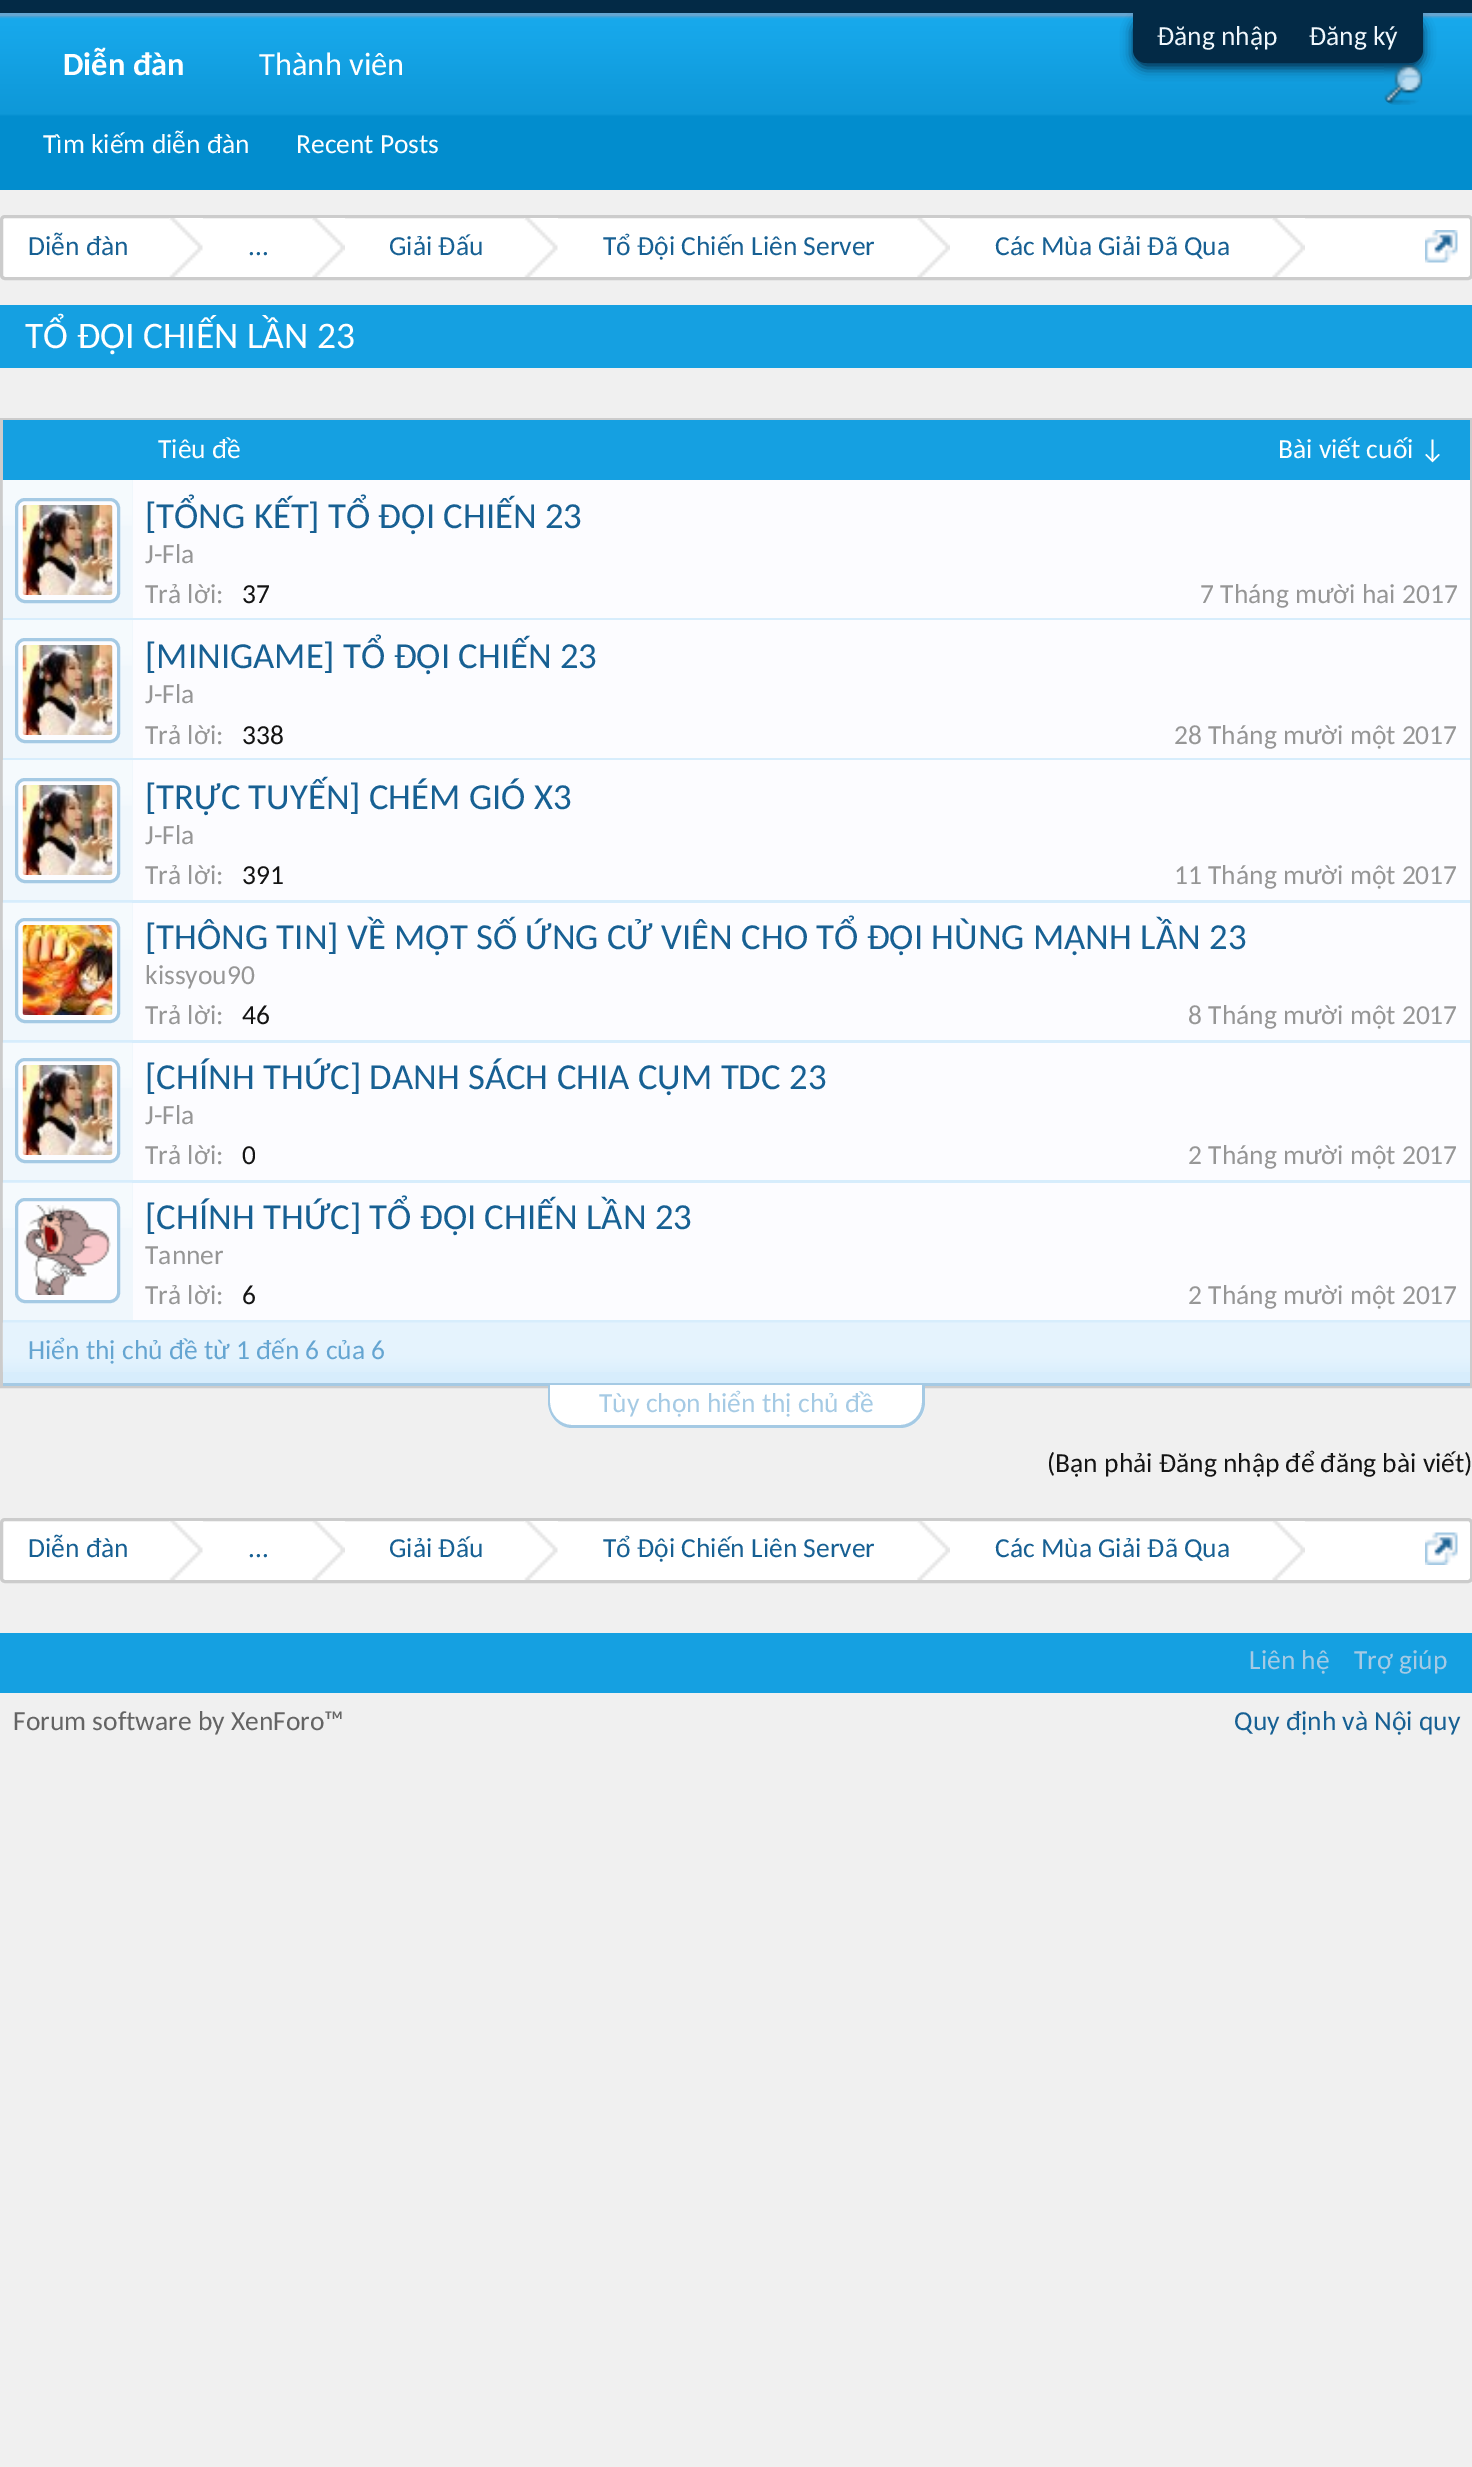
%!PS-Adobe-3.0
%%BoundingBox: 0 0 1472 2467
%%LanguageLevel: 3
%%Pages: 1
%%EndComments
%%BeginProlog
/m { moveto } bind def
/l { lineto } bind def
/c { curveto } bind def
/h { closepath } bind def
/f { fill } bind def
/S { stroke } bind def
/q { gsave } bind def
/Q { grestore } bind def
/w { setlinewidth } bind def
/fn { [ exch dup neg 0 0 3 -1 roll 0 0 ] selectfont } def
/tx { moveto show } def
/bx { rectfill } def
/al { dup .setfillconstantalpha .setstrokeconstantalpha } def
/rr { 5 dict begin { /r /h /w /y /x } { exch def } forall
  x r add y moveto x w add y 2 copy h add r arct x w add y h add x 1 index r arct
  x y h add x y r arct x y 2 copy exch w add exch r arct closepath end } def
/sh { 12 dict begin { /a /b /q /h /w /y /x } { exch def } forall gsave /was 0 def
  9 -2 -9 { dup b mul 4 div /e exch def 1 sub .425 mul 2.718 exch exp 1 add a .99 .min exch div /now exch def
    1 1 now sub 1 was sub div sub al /was now def
    w h .min e 2 mul add 0 gt { x e sub y e sub w e 2 mul add h e 2 mul add
      q e add b .6 mul add w h .min 2 div e add .min 0 .max rr fill } if } for grestore end } def
/im { 5 dict begin { /h /w /y /x /name } { exch def } forall
  gsave x y translate w h scale
  w h 8 [w 0 0 h 0 0] name (r) file false 3 colorimage grestore end } def
%%EndProlog
%%BeginSetup
<< /PageSize [1472 2467] /PageUsesTransparency true >> setpagedevice
%%EndSetup
%%Page: 1 1
0 .pushpdf14devicefilter
0 2467 translate 1 -1 scale
4 setmiterlimit
0.941 setgray
0 0 1472 2467 bx
0.012 0.165 0.275 setrgbcolor
0 0 1472 13 bx
0.396 0.647 0.82 setrgbcolor
0 13 1472 3 bx
(image0.raw) 0 16 1472 174 im
0.012 0.165 0.275 setrgbcolor
1133 18 290 50 13 6 1 sh
1133 13 m 1423 13 l 1423 50 l 1423 57 1417 63 1410 63 c 1146 63 l 1139 63 1133 57 1133 50 c h f
/Carlito-Regular 27.5 fn
0.941 0.969 0.988 setrgbcolor
(Đăng nhập) 1157 45 tx
(Đăng ký) 1309 45 tx
/Carlito-Bold 32.5 fn
1 setgray
(Diễn đàn) 63 75 tx
/Carlito-Regular 27.5 fn
(Tìm kiếm diễn đàn) 43 153 tx
(Recent Posts) 296 153 tx
/Carlito-Regular 32.5 fn
(Thành viên) 259 75 tx
(image1.raw) 1384 65 39 40 im
1.5 216.5 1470 62 3.5 rr q f Q
0.8 setgray
3 w
S
/Carlito-Regular 27.5 fn
0.09 0.376 0.576 setrgbcolor
(Diễn đàn) 28 255 tx
(image2.raw) 169 218 34 59 im
(...) 248 255 tx
(image3.raw) 312 218 33 59 im
q
390 218 93 60 rectclip
(Giải Đấu) 389 255 tx
Q
(image2.raw) 524 218 34 59 im
(Tổ Đội Chiến Liên Server) 603 255 tx
(image3.raw) 917 218 33 59 im
(Các Mùa Giải Đã Qua) 995 255 tx
(image4.raw) 1272 218 33 59 im
(image5.raw) 1425 230 33 33 im
0.082 0.627 0.882 setrgbcolor
0 305 1472 63 bx
/Carlito-Regular 37.5 fn
1 setgray
(TỔ ĐỘI CHIẾN LẦN 23) 25 348 tx
0.8 setgray
1.5 419.5 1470 967 rectstroke
0.082 0.627 0.882 setrgbcolor
3 420 1467 60 bx
/Carlito-Regular 27.5 fn
1 setgray
(Tiêu đề) 158 458 tx
(Bài viết cuối ↓) 1278 458 tx
0.988 0.988 1 setrgbcolor
133 480 1337 138 bx
0.843 0.929 0.988 setrgbcolor
3 618 1467 2 bx
0.941 0.969 0.988 setrgbcolor
3 480 130 138 bx
(image6.raw) 2 480 130 46 im
0.988 0.988 1 setrgbcolor
16.5 499.5 102 102 8.5 rr q f Q
0.647 0.792 0.894 setrgbcolor
S
(image7.raw) 22 505 91 90 im
/Carlito-Regular 36.7 fn
0.09 0.376 0.576 setrgbcolor
([TỔNG KẾT] TỔ ĐỘI CHIẾN 23) 145 528 tx
/Carlito-Regular 27.5 fn
0.588 setgray
(J-Fla) 145 563 tx
(Trả lời:) 145 603 tx
0.078 setgray
(37) 242 603 tx
0.588 setgray
(7 Tháng mười hai 2017) 1200 603 tx
0.988 0.988 1 setrgbcolor
133 620 1337 138 bx
0.843 0.929 0.988 setrgbcolor
3 758 1467 2 bx
0.941 0.969 0.988 setrgbcolor
3 620 130 138 bx
(image6.raw) 2 620 130 46 im
0.988 0.988 1 setrgbcolor
16.5 639.5 102 102 8.5 rr q f Q
0.647 0.792 0.894 setrgbcolor
S
(image7.raw) 22 645 91 90 im
/Carlito-Regular 36.7 fn
0.09 0.376 0.576 setrgbcolor
([MINIGAME] TỔ ĐỘI CHIẾN 23) 145 668 tx
/Carlito-Regular 27.5 fn
0.588 setgray
(J-Fla) 145 703 tx
(Trả lời:) 145 744 tx
0.078 setgray
(338) 242 744 tx
0.588 setgray
(28 Tháng mười một 2017) 1174 744 tx
0.988 0.988 1 setrgbcolor
133 760 1337 140 bx
0.843 0.929 0.988 setrgbcolor
3 900 1467 3 bx
0.941 0.969 0.988 setrgbcolor
3 760 130 140 bx
(image6.raw) 2 760 130 46 im
0.988 0.988 1 setrgbcolor
16.5 779.5 102 102 8.5 rr q f Q
0.647 0.792 0.894 setrgbcolor
S
(image7.raw) 22 785 91 90 im
/Carlito-Regular 36.7 fn
0.09 0.376 0.576 setrgbcolor
([TRỰC TUYẾN] CHÉM GIÓ X3) 145 809 tx
/Carlito-Regular 27.5 fn
0.588 setgray
(J-Fla) 145 844 tx
(Trả lời:) 145 884 tx
0.078 setgray
(391) 242 884 tx
0.588 setgray
(11 Tháng mười một 2017) 1174 884 tx
0.988 0.988 1 setrgbcolor
133 903 1337 137 bx
0.843 0.929 0.988 setrgbcolor
3 1040 1467 3 bx
0.941 0.969 0.988 setrgbcolor
3 903 130 137 bx
(image8.raw) 2 902 130 48 im
0.988 0.988 1 setrgbcolor
16.5 919.5 102 102 8.5 rr q f Q
0.647 0.792 0.894 setrgbcolor
S
(image9.raw) 22 925 91 90 im
/Carlito-Regular 36.7 fn
0.09 0.376 0.576 setrgbcolor
([THÔNG TIN] VỀ MỘT SỐ ỨNG CỬ VIÊN CHO TỔ ĐỘI HÙNG MẠNH LẦN 23) 145 949 tx
/Carlito-Regular 27.5 fn
0.588 setgray
(kissyou90) 145 984 tx
(Trả lời:) 145 1024 tx
0.078 setgray
(46) 242 1024 tx
0.588 setgray
(8 Tháng mười một 2017) 1188 1024 tx
0.988 0.988 1 setrgbcolor
133 1043 1337 137 bx
0.843 0.929 0.988 setrgbcolor
3 1180 1467 3 bx
0.941 0.969 0.988 setrgbcolor
3 1043 130 137 bx
(image10.raw) 2 1042 130 46 im
0.988 0.988 1 setrgbcolor
16.5 1059.5 102 102 8.5 rr q f Q
0.647 0.792 0.894 setrgbcolor
S
(image7.raw) 22 1065 91 90 im
/Carlito-Regular 36.7 fn
0.09 0.376 0.576 setrgbcolor
([CHÍNH THỨC] DANH SÁCH CHIA CỤM TDC 23) 145 1089 tx
/Carlito-Regular 27.5 fn
0.588 setgray
(J-Fla) 145 1124 tx
(Trả lời:) 145 1164 tx
q
145 1135 110 45 rectclip
0.078 setgray
(0) 242 1164 tx
Q
(2 Tháng mười một 2017) 1188 1164 tx
0.988 0.988 1 setrgbcolor
133 1183 1337 137 bx
0.843 0.929 0.988 setrgbcolor
3 1320 1467 63 bx
0.941 0.969 0.988 setrgbcolor
3 1183 130 137 bx
(image10.raw) 2 1182 130 46 im
0.988 0.988 1 setrgbcolor
16.5 1199.5 102 102 8.5 rr q f Q
0.647 0.792 0.894 setrgbcolor
S
(image11.raw) 24 1205 87 90 im
/Carlito-Regular 36.7 fn
0.09 0.376 0.576 setrgbcolor
([CHÍNH THỨC] TỔ ĐỘI CHIẾN LẦN 23) 145 1229 tx
/Carlito-Regular 27.5 fn
0.588 setgray
(Tanner) 145 1264 tx
(Trả lời:) 145 1304 tx
0.078 setgray
(6) 242 1304 tx
0.588 setgray
(2 Tháng mười một 2017) 1188 1304 tx
(image12.raw) 2 1322 1468 50 im
0.647 0.792 0.894 setrgbcolor
3 1383 1467 3 bx
0.396 0.647 0.82 setrgbcolor
(Hiển thị chủ đề từ 1 đến 6 của 6) 28 1359 tx
1 setgray
548 1385 m 925 1385 l 925 1403 l 925 1417 914 1428 900 1428 c 573 1428 l 559 1428 548 1417 548 1403 c h f
0.647 0.792 0.894 setrgbcolor
548 1385 m 925 1385 l 925 1402 l 925 1416 914 1428 900 1428 c 572 1428 l 559 1428 548 1416 548 1402 c h 550 1385 m 922 1385 l 922 1402 l 922 1415 912 1425 900 1425 c 572 1425 l 560 1425 550 1415 550 1402 c h eofill
(Tùy chọn hiển thị chủ đề) 599 1412 tx
0.078 setgray
(\(Bạn phải Đăng nhập để đăng bài viết\)) 1047 1472 tx
1 setgray
1.5 1519.5 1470 62 3.5 rr q f Q
0.8 setgray
S
0.09 0.376 0.576 setrgbcolor
(Diễn đàn) 28 1557 tx
(image13.raw) 169 1521 34 59 im
(...) 248 1557 tx
(image14.raw) 312 1521 33 59 im
q
390 1520 93 60 rectclip
(Giải Đấu) 389 1557 tx
Q
(image13.raw) 524 1521 34 59 im
(Tổ Đội Chiến Liên Server) 603 1557 tx
(image14.raw) 917 1521 33 59 im
(Các Mùa Giải Đã Qua) 995 1557 tx
(image15.raw) 1272 1521 33 59 im
(image16.raw) 1425 1532 33 33 im
0.082 0.627 0.882 setrgbcolor
0 1633 1472 60 bx
0.647 0.792 0.894 setrgbcolor
(Liên hệ) 1249 1669 tx
(Trợ giúp) 1354 1669 tx
0.392 setgray
(Forum software by XenForo™) 13 1730 tx
0.09 0.376 0.576 setrgbcolor
(Quy định và Nội quy) 1234 1730 tx
.poppdf14devicefilter showpage
%%EOF
